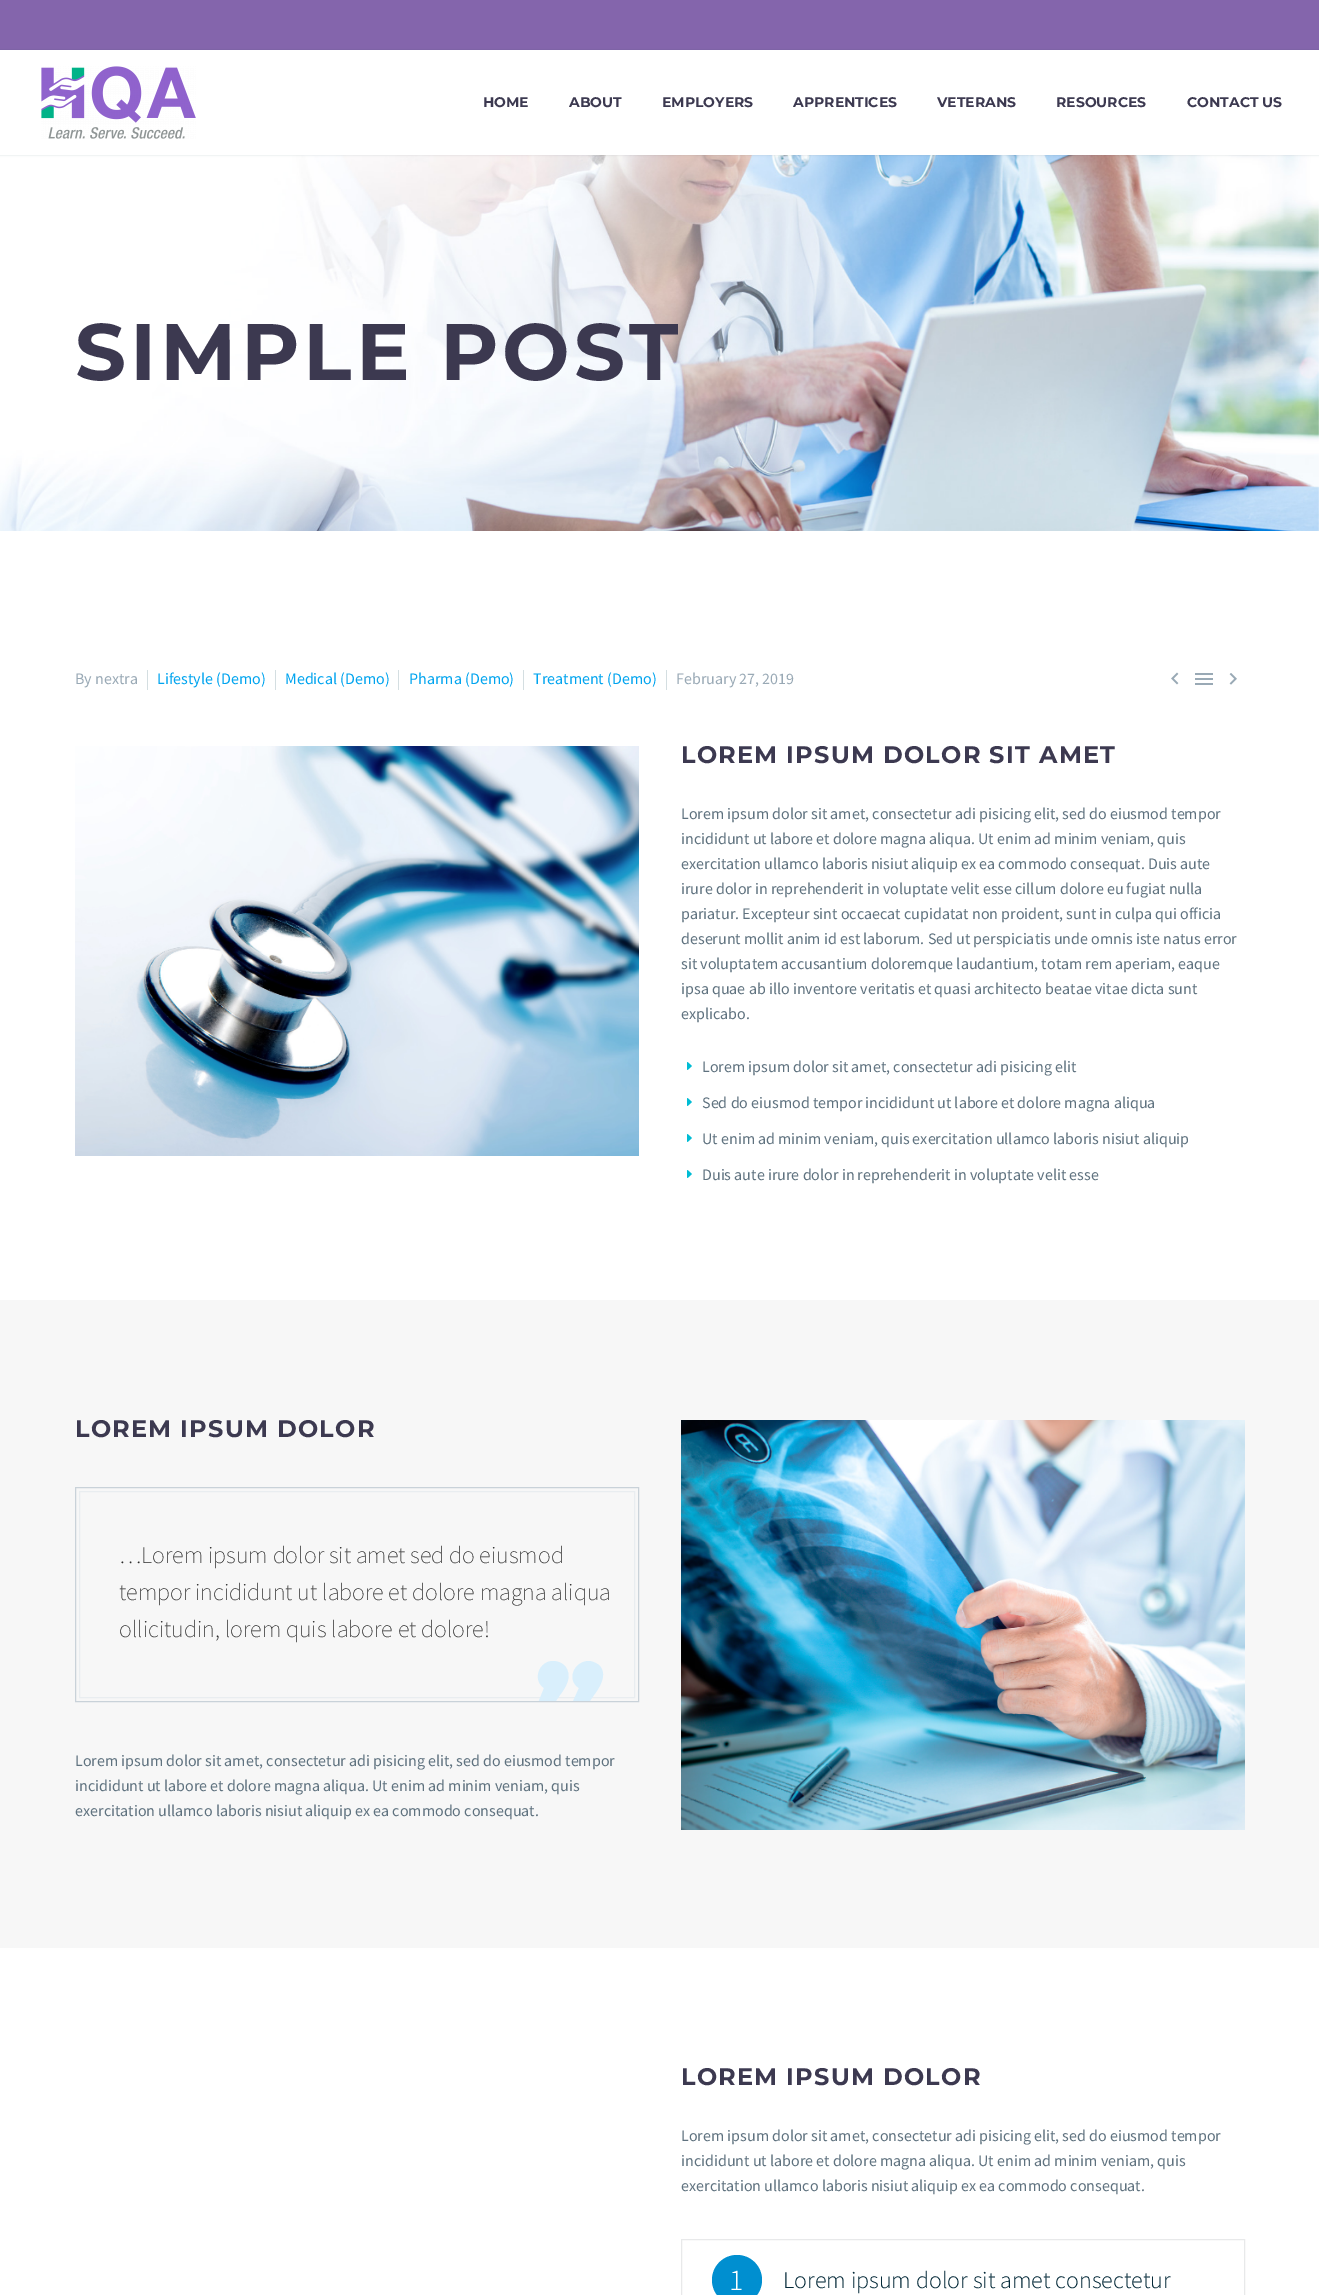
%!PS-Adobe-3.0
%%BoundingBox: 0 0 1319 2295
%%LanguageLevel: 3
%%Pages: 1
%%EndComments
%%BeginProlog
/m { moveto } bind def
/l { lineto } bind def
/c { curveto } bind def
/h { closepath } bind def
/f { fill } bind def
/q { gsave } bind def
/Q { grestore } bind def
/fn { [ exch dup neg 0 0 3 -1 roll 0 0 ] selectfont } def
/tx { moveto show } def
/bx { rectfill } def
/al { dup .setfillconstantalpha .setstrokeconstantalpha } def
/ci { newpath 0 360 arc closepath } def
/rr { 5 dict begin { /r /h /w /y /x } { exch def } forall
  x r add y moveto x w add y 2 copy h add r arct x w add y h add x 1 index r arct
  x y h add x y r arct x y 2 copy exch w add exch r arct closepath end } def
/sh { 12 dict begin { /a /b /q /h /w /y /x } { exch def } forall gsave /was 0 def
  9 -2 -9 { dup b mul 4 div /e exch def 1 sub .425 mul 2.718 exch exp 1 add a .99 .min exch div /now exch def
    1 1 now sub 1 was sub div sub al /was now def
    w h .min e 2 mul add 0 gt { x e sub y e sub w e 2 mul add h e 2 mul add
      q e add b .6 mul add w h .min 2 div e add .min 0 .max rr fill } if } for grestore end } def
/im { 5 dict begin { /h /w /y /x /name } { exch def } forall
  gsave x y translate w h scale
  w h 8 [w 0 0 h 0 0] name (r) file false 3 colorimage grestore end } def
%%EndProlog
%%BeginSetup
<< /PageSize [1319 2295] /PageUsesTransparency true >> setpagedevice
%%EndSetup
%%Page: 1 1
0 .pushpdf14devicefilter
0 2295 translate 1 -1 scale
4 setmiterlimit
1 setgray
0 0 1319 2295 bx
0.518 0.396 0.675 setrgbcolor
0 0 1319 50 bx
(image1.raw) 0 155 1319 376 im
q
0 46 m 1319 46 l 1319 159 l 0 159 l h 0 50 m 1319 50 l 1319 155 l 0 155 l h eoclip newpath
0.22 0.271 0.329 setrgbcolor
0 50 1319 105 0 1 0.2 sh
Q
(image0.raw) 41 66 155 73 im
/Montserrat-Bold 14 fn
0.235 0.224 0.314 setrgbcolor
(HOME) 483 107 tx
(ABOUT) 569 107 tx
(EMPLOYERS) 662 107 tx
(APPRENTICES) 793 107 tx
(VETERANS) 937 107 tx
(RESOURCES) 1056 107 tx
(CONTACT US) 1187 107 tx
/Montserrat-Bold 80 fn
75 380 m 4 0 (SIMPLE POST) ashow
/SourceSansPro-Regular 16 fn
0.6 0.663 0.71 setrgbcolor
(By nextra) 75 684 tx
0.831 0.871 0.882 setrgbcolor
147 670 1 20 bx
0 0.643 0.937 setrgbcolor
(Lifestyle \(Demo\)) 157 684 tx
0.831 0.871 0.882 setrgbcolor
275 670 1 20 bx
0 0.643 0.937 setrgbcolor
(Medical \(Demo\)) 285 684 tx
0.831 0.871 0.882 setrgbcolor
398 670 1 20 bx
0 0.643 0.937 setrgbcolor
(Pharma \(Demo\)) 409 684 tx
0.831 0.871 0.882 setrgbcolor
523 670 1 20 bx
0 0.643 0.937 setrgbcolor
(Treatment \(Demo\)) 533 684 tx
0.831 0.871 0.882 setrgbcolor
666 670 1 20 bx
0.6 0.663 0.71 setrgbcolor
(February 27, 2019) 676 684 tx
(image2.raw) 1171 672 8 13 im
(image3.raw) 1195 673 18 12 im
(image4.raw) 1229 673 8 12 im
(image5.raw) 75 746 564 410 im
/Montserrat-Bold 24 fn
0.235 0.224 0.314 setrgbcolor
681 763 m 1.2 0 (LOREM IPSUM DOLOR SIT AMET) ashow
/SourceSansPro-Regular 16 fn
0.373 0.447 0.498 setrgbcolor
(Lorem ipsum dolor sit amet, consectetur adi pisicing elit, sed do eiusmod tempor) 681 819 tx
(incididunt ut labore et dolore magna aliqua. Ut enim ad minim veniam, quis) 681 844 tx
(exercitation ullamco laboris nisiut aliquip ex ea commodo consequat. Duis aute) 681 869 tx
(irure dolor in reprehenderit in voluptate velit esse cillum dolore eu fugiat nulla) 681 894 tx
(pariatur. Excepteur sint occaecat cupidatat non proident, sunt in culpa qui officia) 681 919 tx
(deserunt mollit anim id est laborum. Sed ut perspiciatis unde omnis iste natus error) 681 944 tx
(sit voluptatem accusantium doloremque laudantium, totam rem aperiam, eaque) 681 969 tx
(ipsa quae ab illo inventore veritatis et quasi architecto beatae vitae dicta sunt) 681 994 tx
(explicabo.) 681 1019 tx
(image6.raw) 687 1062 5 8 im
(Lorem ipsum dolor sit amet, consectetur adi pisicing elit) 702 1072 tx
(image6.raw) 687 1098 5 8 im
(Sed do eiusmod tempor incididunt ut labore et dolore magna aliqua) 702 1108 tx
(image6.raw) 687 1134 5 8 im
(Ut enim ad minim veniam, quis exercitation ullamco laboris nisiut aliquip) 702 1144 tx
(image6.raw) 687 1170 5 8 im
(Duis aute irure dolor in reprehenderit in voluptate velit esse) 702 1180 tx
0.969 setgray
0 1300 1319 648 bx
/Montserrat-Bold 24 fn
0.235 0.224 0.314 setrgbcolor
75 1437 m 1.2 0 (LOREM IPSUM DOLOR) ashow
0.788 0.824 0.851 setrgbcolor
75.5 1487.5 563 214 rectstroke
0.914 0.929 0.941 setrgbcolor
79.5 1491.5 555 206 rectstroke
/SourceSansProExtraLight-ExtraLight 24 fn
0.169 setgray
(…Lorem ipsum dolor sit amet sed do eiusmod) 119 1563 tx
(tempor incididunt ut labore et dolore magna aliqua) 119 1600 tx
(ollicitudin, lorem quis labore et dolore!) 119 1637 tx
q
76 1488 562 213 rectclip
0.851 0.937 0.988 setrgbcolor
599 1665 m 596 1663 592 1661 589 1661 c 574 1661 566 1680 579 1688 c 570 1708 l 585 1708 l 594 1695 l 600 1687 608 1674 599 1665 c h 553 1661 m 539 1661 532 1680 544 1688 c 536 1708 l 551 1708 l 560 1695 l 566 1687 573 1676 565 1666 c 562 1663 558 1661 553 1661 c h f
Q
/SourceSansPro-Regular 16 fn
0.373 0.447 0.498 setrgbcolor
(Lorem ipsum dolor sit amet, consectetur adi pisicing elit, sed do eiusmod tempor) 75 1766 tx
(incididunt ut labore et dolore magna aliqua. Ut enim ad minim veniam, quis) 75 1791 tx
(exercitation ullamco laboris nisiut aliquip ex ea commodo consequat.) 75 1816 tx
(image7.raw) 681 1420 564 410 im
/Montserrat-Bold 24 fn
0.235 0.224 0.314 setrgbcolor
681 2085 m 1.2 0 (LOREM IPSUM DOLOR) ashow
/SourceSansPro-Regular 16 fn
0.373 0.447 0.498 setrgbcolor
(Lorem ipsum dolor sit amet, consectetur adi pisicing elit, sed do eiusmod tempor) 681 2141 tx
(incididunt ut labore et dolore magna aliqua. Ut enim ad minim veniam, quis) 681 2166 tx
(exercitation ullamco laboris nisiut aliquip ex ea commodo consequat.) 681 2191 tx
0.91 0.914 0.918 setrgbcolor
681.5 2239.5 563 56 rectstroke
0 0.561 0.816 setrgbcolor
737 2280 25 ci f
/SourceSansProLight-Light 30 fn
1 setgray
(1) 729 2290 tx
/SourceSansProLight-Light 24 fn
0.016 0.161 0.22 setrgbcolor
(Lorem ipsum dolor sit amet consectetur) 783 2288 tx
.poppdf14devicefilter showpage
%%EOF
